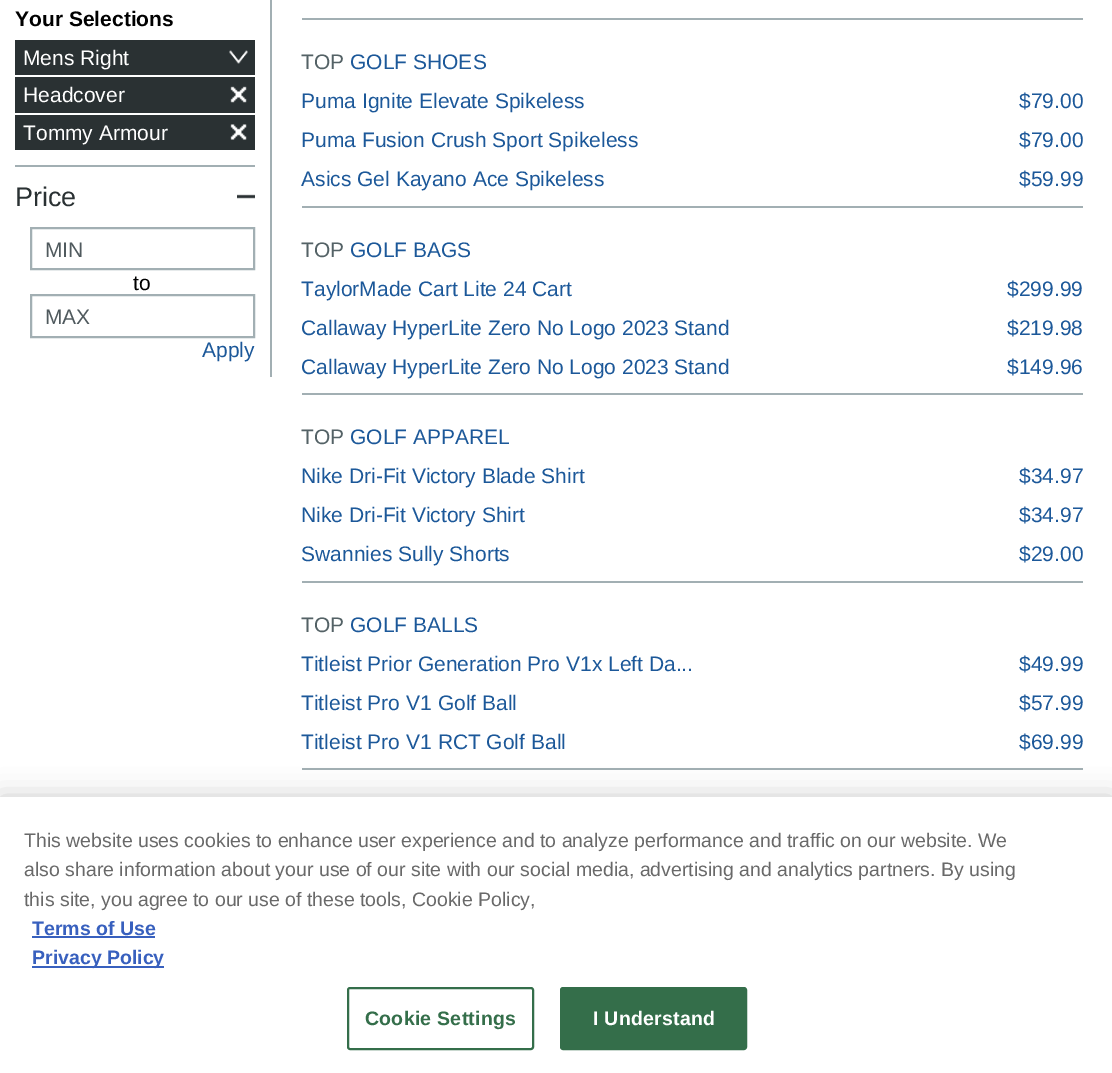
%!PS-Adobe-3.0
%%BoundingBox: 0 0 1112 1073
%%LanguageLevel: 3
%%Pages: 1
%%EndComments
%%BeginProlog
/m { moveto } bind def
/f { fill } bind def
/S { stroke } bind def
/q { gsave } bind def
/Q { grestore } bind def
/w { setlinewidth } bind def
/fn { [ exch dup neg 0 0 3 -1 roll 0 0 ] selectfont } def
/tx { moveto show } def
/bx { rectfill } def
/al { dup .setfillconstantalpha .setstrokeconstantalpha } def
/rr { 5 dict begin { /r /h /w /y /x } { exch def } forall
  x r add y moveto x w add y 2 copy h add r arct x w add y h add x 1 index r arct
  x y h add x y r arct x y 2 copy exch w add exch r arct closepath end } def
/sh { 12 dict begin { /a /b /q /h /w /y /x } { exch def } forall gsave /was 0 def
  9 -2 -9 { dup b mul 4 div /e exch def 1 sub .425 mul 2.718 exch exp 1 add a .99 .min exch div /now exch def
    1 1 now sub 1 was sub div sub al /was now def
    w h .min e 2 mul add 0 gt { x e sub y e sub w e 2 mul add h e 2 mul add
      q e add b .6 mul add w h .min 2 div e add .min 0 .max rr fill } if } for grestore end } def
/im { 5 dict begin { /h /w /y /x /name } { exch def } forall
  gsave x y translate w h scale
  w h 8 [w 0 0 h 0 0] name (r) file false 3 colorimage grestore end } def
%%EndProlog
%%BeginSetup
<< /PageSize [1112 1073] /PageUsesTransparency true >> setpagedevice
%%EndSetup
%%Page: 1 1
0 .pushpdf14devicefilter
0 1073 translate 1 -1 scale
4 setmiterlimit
1 setgray
0 0 1112 1073 bx
0.635 0.686 0.702 setrgbcolor
270 0 2 377 bx
/LiberationSans-Bold 21 fn
0 setgray
(Your Selections) 15 26 tx
0.165 0.192 0.2 setrgbcolor
15 40 240 35 bx
(image0.raw) 229 50 19 14 im
/LiberationSans-Regular 21 fn
1 setgray
(Mens Right) 23 65 tx
0.165 0.192 0.2 setrgbcolor
15 77 240 36 bx
(image1.raw) 230 86 17 17 im
1 setgray
(Headcover) 23 102 tx
0.165 0.192 0.2 setrgbcolor
15 115 240 35 bx
(image2.raw) 230 124 17 16 im
1 setgray
(Tommy Armour) 23 140 tx
(image3.raw) 237 194 18 5 im
0.635 0.686 0.702 setrgbcolor
15 165 240 2 bx
/LiberationSans-Regular 27 fn
0.165 0.192 0.2 setrgbcolor
(Price) 15 206 tx
0.635 0.686 0.702 setrgbcolor
2 w
31 228 223 41 rectstroke
/LiberationSans-Regular 21 fn
0.314 0.353 0.369 setrgbcolor
(MIN) 45 257 tx
0 setgray
(to) 133 290 tx
0.635 0.686 0.702 setrgbcolor
31 295 223 42 rectstroke
0.314 0.353 0.369 setrgbcolor
(MAX) 45 324 tx
0.11 0.345 0.6 setrgbcolor
(Apply) 202 357 tx
0.635 0.686 0.702 setrgbcolor
302 18 781 2 bx
302 206 781 2 bx
0.329 0.384 0.4 setrgbcolor
(TOP) 301 69 tx
0.11 0.345 0.6 setrgbcolor
(GOLF SHOES) 350 69 tx
(Puma Ignite Elevate Spikeless) 301 108 tx
($79.00) 1019 108 tx
(Puma Fusion Crush Sport Spikeless) 301 147 tx
($79.00) 1019 147 tx
(Asics Gel Kayano Ace Spikeless) 301 186 tx
($59.99) 1019 186 tx
0.635 0.686 0.702 setrgbcolor
302 393 781 2 bx
0.329 0.384 0.4 setrgbcolor
(TOP) 301 257 tx
0.11 0.345 0.6 setrgbcolor
(GOLF BAGS) 350 257 tx
(TaylorMade Cart Lite 24 Cart) 301 296 tx
($299.99) 1007 296 tx
(Callaway HyperLite Zero No Logo 2023 Stand) 301 335 tx
($219.98) 1007 335 tx
(Callaway HyperLite Zero No Logo 2023 Stand) 301 374 tx
($149.96) 1007 374 tx
0.635 0.686 0.702 setrgbcolor
302 581 781 2 bx
0.329 0.384 0.4 setrgbcolor
(TOP) 301 444 tx
0.11 0.345 0.6 setrgbcolor
(GOLF APPAREL) 350 444 tx
(Nike Dri-Fit Victory Blade Shirt) 301 483 tx
($34.97) 1019 483 tx
(Nike Dri-Fit Victory Shirt) 301 522 tx
($34.97) 1019 522 tx
(Swannies Sully Shorts) 301 561 tx
($29.00) 1019 561 tx
0.635 0.686 0.702 setrgbcolor
302 768 781 2 bx
0.329 0.384 0.4 setrgbcolor
(TOP) 301 632 tx
0.11 0.345 0.6 setrgbcolor
(GOLF BALLS) 350 632 tx
(Titleist Prior Generation Pro V1x Left Da...) 301 671 tx
($49.99) 1019 671 tx
(Titleist Pro V1 Golf Ball) 301 710 tx
($57.99) 1019 710 tx
(Titleist Pro V1 RCT Golf Ball) 301 749 tx
($69.99) 1019 749 tx
0 setgray
0 797 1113 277 0 13.5 0.2 sh
1 setgray
0 797 1112 276 bx
/LiberationSans-Regular 19.5 fn
0.412 setgray
(This website uses cookies to enhance user experience and to analyze performance and traffic on our website. We) 24 847 tx
(also share information about your use of our site with our social media, advertising and analytics partners. By using) 24 876 tx
(this site, you agree to our use of these tools, Cookie Policy,) 24 906 tx
/LiberationSans-Bold 19.5 fn
0.22 0.376 0.745 setrgbcolor
(Terms of Use) 32 935 tx
32 936 123 2 bx
32 966 132 2 bx
(Privacy Policy) 32 964 tx
0.204 0.431 0.29 setrgbcolor
348 988 185 61 2 rr S
365 1025 m 0.25 0 (Cookie Settings) ashow
561 988 185 61 2 rr q f Q
S
1 setgray
593 1025 m 0.25 0 (I Understand) ashow
.poppdf14devicefilter showpage
%%EOF
